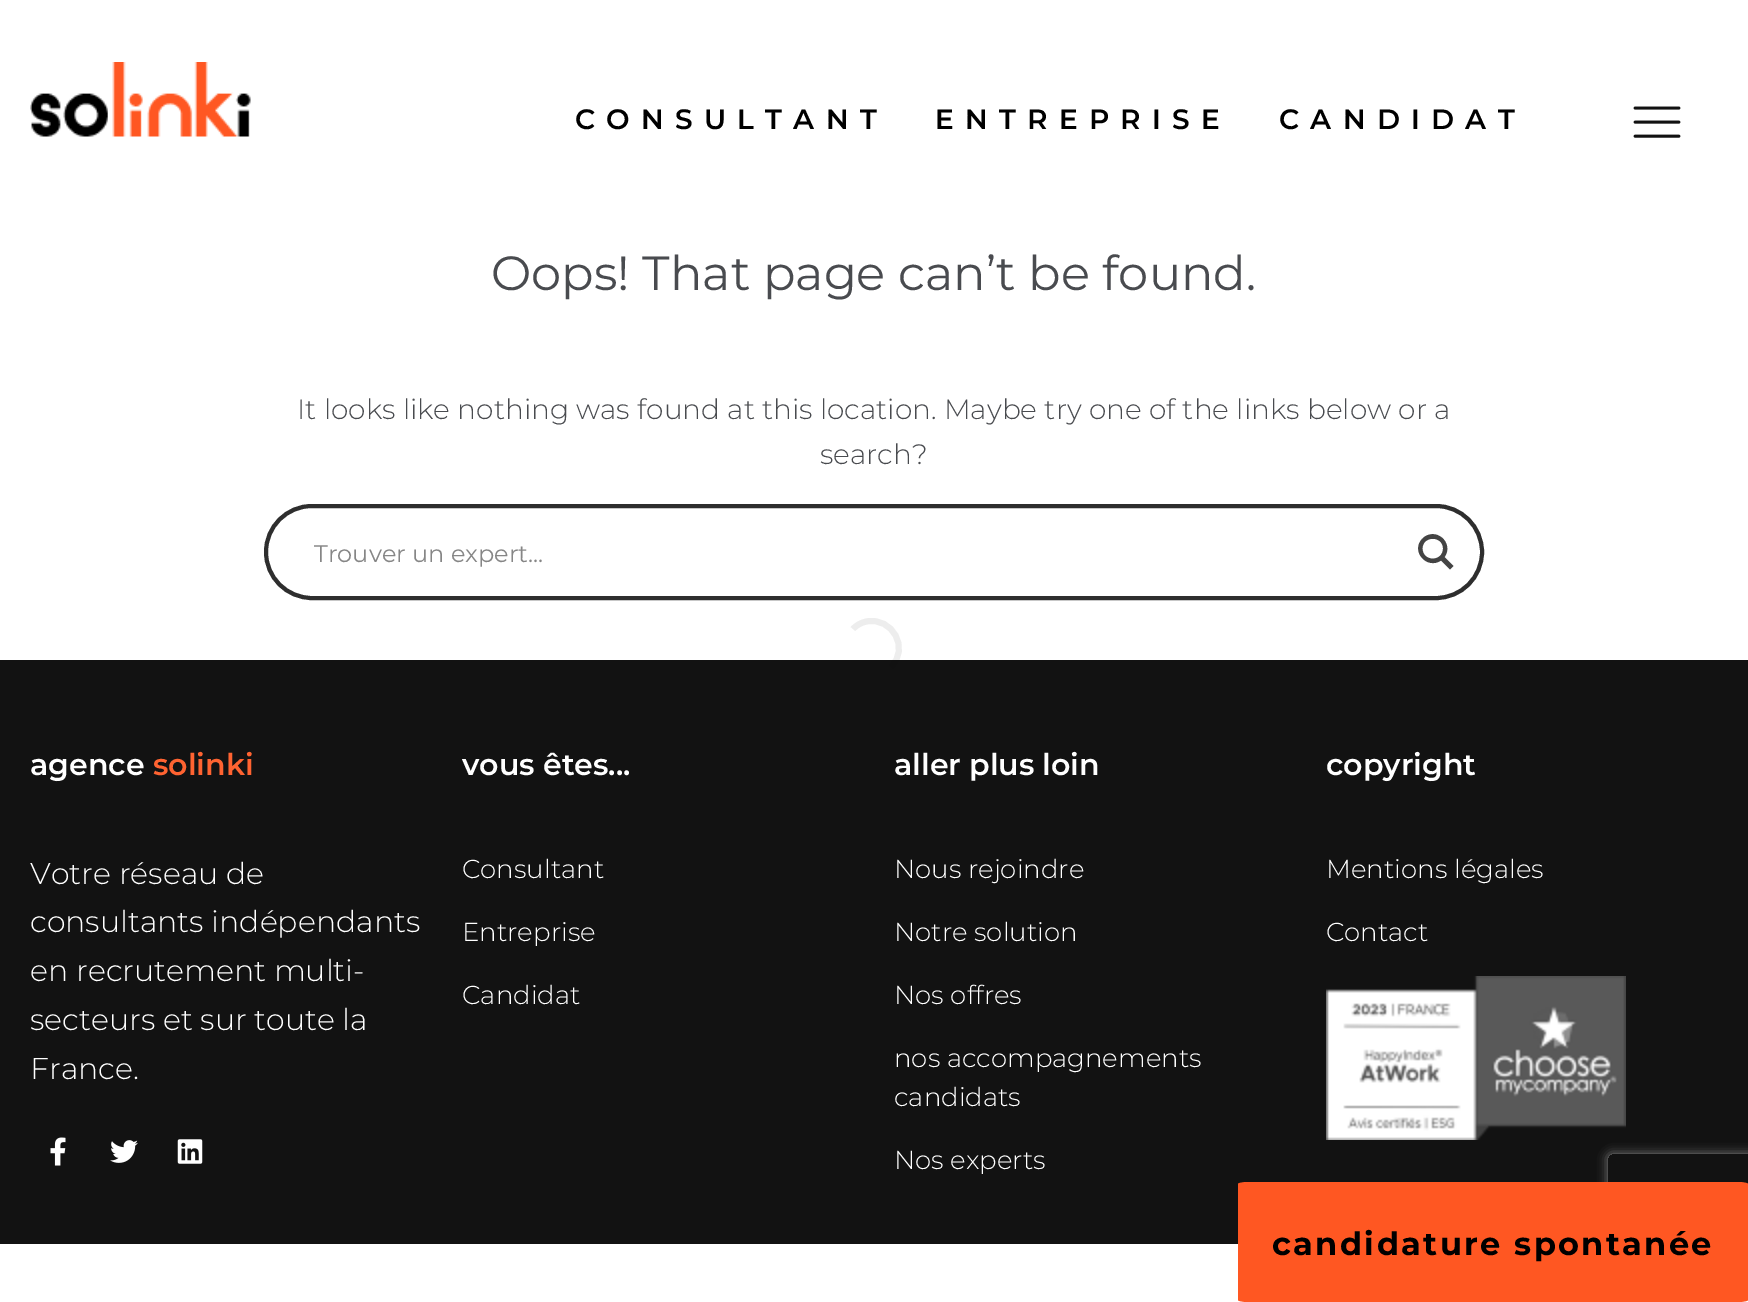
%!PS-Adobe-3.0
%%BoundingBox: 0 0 1748 1302
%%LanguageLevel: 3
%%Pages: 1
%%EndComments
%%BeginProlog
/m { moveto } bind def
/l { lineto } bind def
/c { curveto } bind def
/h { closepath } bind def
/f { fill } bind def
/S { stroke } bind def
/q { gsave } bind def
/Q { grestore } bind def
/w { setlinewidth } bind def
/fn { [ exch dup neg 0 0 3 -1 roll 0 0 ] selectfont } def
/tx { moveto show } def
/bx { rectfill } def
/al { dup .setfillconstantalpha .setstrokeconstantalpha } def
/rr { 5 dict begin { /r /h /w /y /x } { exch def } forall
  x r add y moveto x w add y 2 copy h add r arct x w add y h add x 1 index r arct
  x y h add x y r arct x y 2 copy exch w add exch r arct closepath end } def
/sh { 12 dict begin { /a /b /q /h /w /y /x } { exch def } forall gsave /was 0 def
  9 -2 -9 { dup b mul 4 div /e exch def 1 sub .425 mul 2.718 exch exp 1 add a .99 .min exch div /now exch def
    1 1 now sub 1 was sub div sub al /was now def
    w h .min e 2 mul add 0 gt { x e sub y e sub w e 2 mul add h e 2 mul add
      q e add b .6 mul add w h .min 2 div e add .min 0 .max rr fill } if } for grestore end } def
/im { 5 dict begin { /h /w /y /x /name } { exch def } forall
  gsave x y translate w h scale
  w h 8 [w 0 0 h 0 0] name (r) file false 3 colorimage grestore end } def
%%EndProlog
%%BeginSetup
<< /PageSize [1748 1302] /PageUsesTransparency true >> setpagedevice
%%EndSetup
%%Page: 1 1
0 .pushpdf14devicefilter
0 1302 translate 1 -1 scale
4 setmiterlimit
1 setgray
0 0 1748 1302 bx
(image0.raw) 30 62 221 75 im
/Montserrat-SemiBold 28 fn
0 setgray
575 129 m 11.25 0 (CONSULTANT) ashow
935 129 m 11.25 0 (ENTREPRISE) ashow
1279 129 m 11.25 0 (CANDIDAT) ashow
(image1.raw) 1633 106 48 32 im
/Montserrat-Regular 48 fn
0.286 0.294 0.31 setrgbcolor
(Oops! That page can’t be found.) 491 290 tx
/Montserrat-Light 28 fn
(It looks like nothing was found at this location. Maybe try one of the links below or a) 297 419 tx
(search?) 820 464 tx
0.18 setgray
4 w
266 506 1216 92 46 rr S
/Montserrat-Regular 24 fn
0.525 setgray
(Trouver un expert...) 314 562 tx
0.267 setgray
1453.5 566 m 1444.5 557 l 1454.5 543 1435.5 526 1422.5 538.5 c 1410 551 1427 570 1441 560.5 c 1450 569.5 l h 1422.5 548.5 m 1422.5 535.5 1443 535.5 1443 548.5 c 1443 562 1422.5 562 1422.5 548.5 c h f
0.071 setgray
0 660 1748 584 bx
/Montserrat-SemiBold 30 fn
1 setgray
(agence) 30 775 tx
1 0.388 0.192 setrgbcolor
(solinki) 153 775 tx
/Montserrat-Light 30 fn
1 setgray
(Votre réseau de) 30 884 tx
(consultants indépendants) 30 932 tx
(en recrutement multi-) 30 981 tx
(secteurs et sur toute la) 30 1030 tx
(France.) 30 1079 tx
(image2.raw) 50 1137 16 29 im
(image3.raw) 110 1140 28 23 im
(image4.raw) 177 1139 26 25 im
(image5.raw) 1326 976 300 164 im
q
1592 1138 m 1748 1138 l 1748 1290 l 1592 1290 l h 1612 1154 m 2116 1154 l 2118 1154 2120 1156 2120 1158 c 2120 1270 l 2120 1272 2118 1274 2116 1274 c 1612 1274 l 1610 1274 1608 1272 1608 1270 c 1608 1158 l 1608 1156 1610 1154 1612 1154 c h eoclip newpath
0.537 setgray
1608 1154 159 120 4 5 1 sh
Q
1 0.341 0.133 setrgbcolor
1248 1182 m 1738 1182 l 1743 1182 1748 1183 1748 1184 c 1748 1300 l 1748 1301 1743 1302 1738 1302 c 1248 1302 l 1243 1302 1238 1301 1238 1300 c 1238 1184 l 1238 1183 1243 1182 1248 1182 c h f
/Montserrat-Bold 32 fn
0 setgray
1272 1255 m 2.4 0 (candidature spontanée) ashow
/Montserrat-SemiBold 30 fn
1 setgray
(vous êtes...) 462 775 tx
/Montserrat-Light 26 fn
(Consultant) 462 878 tx
(Entreprise) 462 941 tx
(Candidat) 462 1004 tx
/Montserrat-SemiBold 30 fn
(aller plus loin) 894 775 tx
/Montserrat-Light 26 fn
(Nous rejoindre) 894 878 tx
(Notre solution) 894 941 tx
(Nos offres) 894 1004 tx
(nos accompagnements) 894 1067 tx
(candidats) 894 1106 tx
(Nos experts) 894 1169 tx
/Montserrat-SemiBold 30 fn
(copyright) 1326 775 tx
/Montserrat-Light 26 fn
(Mentions légales) 1326 878 tx
(Contact) 1326 941 tx
0.07 al
0 setgray
6 w
853 629 m 856.5 625 861.5 622.5 866.5 621.5 c 892.5 616.5 910 648.5 891 667 c S
.poppdf14devicefilter showpage
%%EOF
